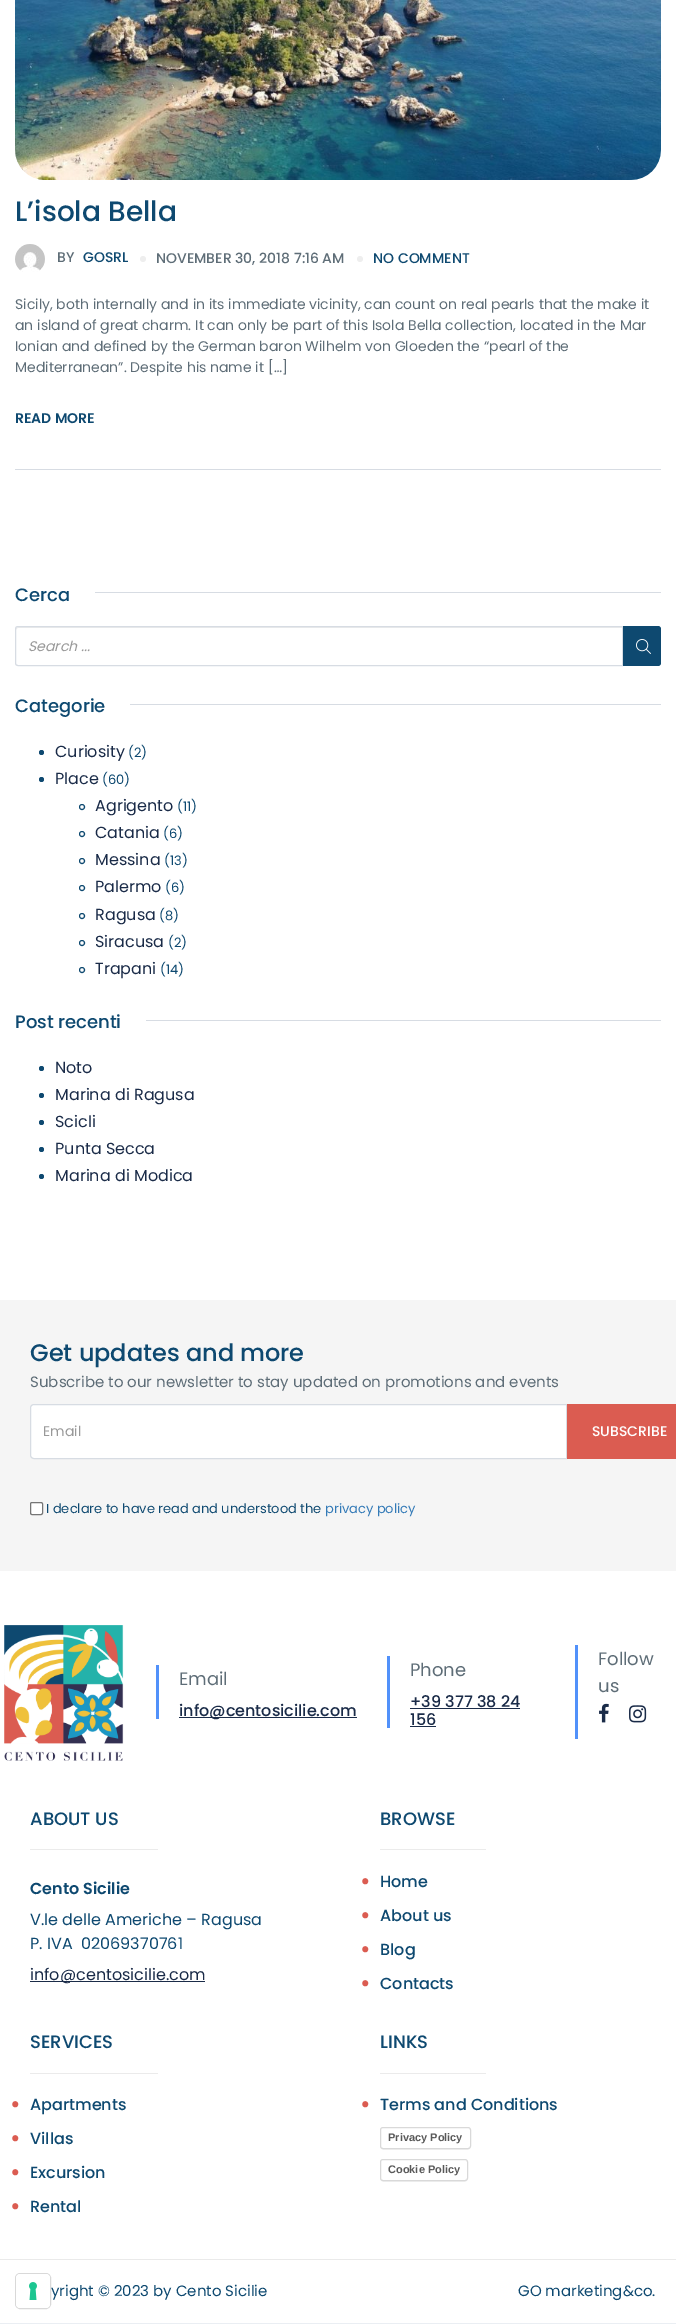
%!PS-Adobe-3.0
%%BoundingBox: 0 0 676 2324
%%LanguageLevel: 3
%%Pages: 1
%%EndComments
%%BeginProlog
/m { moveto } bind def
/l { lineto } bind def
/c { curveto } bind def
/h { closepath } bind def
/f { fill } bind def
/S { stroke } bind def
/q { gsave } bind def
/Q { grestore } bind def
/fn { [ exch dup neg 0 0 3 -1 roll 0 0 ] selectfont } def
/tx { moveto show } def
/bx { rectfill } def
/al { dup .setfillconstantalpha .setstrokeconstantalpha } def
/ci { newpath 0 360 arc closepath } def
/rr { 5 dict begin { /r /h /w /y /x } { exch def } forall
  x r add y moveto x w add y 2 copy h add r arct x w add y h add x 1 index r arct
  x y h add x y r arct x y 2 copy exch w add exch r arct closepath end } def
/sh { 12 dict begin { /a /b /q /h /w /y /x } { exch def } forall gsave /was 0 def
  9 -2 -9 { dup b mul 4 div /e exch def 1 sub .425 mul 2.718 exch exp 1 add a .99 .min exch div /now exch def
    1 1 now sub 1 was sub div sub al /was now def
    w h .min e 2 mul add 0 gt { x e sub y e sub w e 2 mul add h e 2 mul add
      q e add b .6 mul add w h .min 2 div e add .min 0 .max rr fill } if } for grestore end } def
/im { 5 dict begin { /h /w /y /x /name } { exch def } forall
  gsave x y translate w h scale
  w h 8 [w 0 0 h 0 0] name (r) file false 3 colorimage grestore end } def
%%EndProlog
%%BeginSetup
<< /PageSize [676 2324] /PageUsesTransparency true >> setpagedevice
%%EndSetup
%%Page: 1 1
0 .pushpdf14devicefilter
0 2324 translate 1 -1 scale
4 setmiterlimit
1 setgray
0 0 676 2324 bx
0.843 0.863 0.89 setrgbcolor
15 469 646 1 bx
(image0.raw) 15 0 646 180 im
/Poppins-Medium 28 fn
0.055 0.286 0.439 setrgbcolor
(L’isola Bella) 15 221 tx
(image1.raw) 15 244 30 28 im
/Poppins-Medium 14 fn
0.369 0.427 0.467 setrgbcolor
(BY) 57 262 tx
0.055 0.286 0.439 setrgbcolor
(GOSRL) 83 262 tx
0.933 setgray
143 259 3 ci f
0.369 0.427 0.467 setrgbcolor
(NOVEMBER 30, 2018 7:16 AM) 156 263 tx
0.933 setgray
360 259 3 ci f
0.055 0.286 0.439 setrgbcolor
(NO COMMENT) 373 263 tx
/Poppins-Regular 14 fn
0.369 0.427 0.467 setrgbcolor
(Sicily, both internally and in its immediate vicinity, can count on real pearls that the make it) 15 309 tx
(an island of great charm. It can only be part of this Isola Bella collection, located in the Mar) 15 330 tx
(Ionian and defined by the German baron Wilhelm von Gloeden the “pearl of the) 15 351 tx
(Mediterranean”. Despite his name it […]) 15 372 tx
/Poppins-SemiBold 14 fn
0.055 0.286 0.439 setrgbcolor
(READ MORE) 15 423 tx
/Poppins-Medium 18 fn
(Cerca) 15 601 tx
0.843 0.863 0.89 setrgbcolor
95 592 566 1 bx
0.925 setgray
18 628 m 622 628 l 622 627 l 18 627 l 16 628 l 16 630 l 16 629 17 628 18 628 c h f
0.843 0.863 0.89 setrgbcolor
18 626.5 m 622.5 626.5 l 622.5 665.5 l 18 665.5 l 16.5 665.5 15.5 664.5 15.5 663 c 15.5 629 l 15.5 627.5 16.5 626.5 18 626.5 c h S
/Poppins-Italic 14 fn
0.6 setgray
(Search ...) 28 651 tx
0.055 0.286 0.439 setrgbcolor
623 626 m 658 626 l 659.5 626 661 627.5 661 629 c 661 663 l 661 664.5 659.5 666 658 666 c 623 666 l h f
(image2.raw) 636 639 15 15 im
/Poppins-Medium 18 fn
(Categorie) 15 712 tx
0.843 0.863 0.89 setrgbcolor
130 704 531 1 bx
0.055 0.286 0.439 setrgbcolor
41.5 752.5 2.5 ci f
/Poppins-Regular 16 fn
0.102 0.169 0.282 setrgbcolor
(Curiosity) 55 757 tx
/Poppins-Regular 13 fn
0.055 0.286 0.439 setrgbcolor
(\(2\)) 128 757 tx
41.5 779.5 2.5 ci f
/Poppins-Regular 16 fn
0.102 0.169 0.282 setrgbcolor
(Place) 55 784 tx
/Poppins-Regular 13 fn
0.055 0.286 0.439 setrgbcolor
(\(60\)) 102 784 tx
82 807 2.5 ci S
/Poppins-Regular 16 fn
0.102 0.169 0.282 setrgbcolor
(Agrigento) 95 811 tx
/Poppins-Regular 13 fn
0.055 0.286 0.439 setrgbcolor
(\(11\)) 177 811 tx
82 834 2.5 ci S
/Poppins-Regular 16 fn
0.102 0.169 0.282 setrgbcolor
(Catania) 95 838 tx
/Poppins-Regular 13 fn
0.055 0.286 0.439 setrgbcolor
(\(6\)) 163 838 tx
82 861 2.5 ci S
/Poppins-Regular 16 fn
0.102 0.169 0.282 setrgbcolor
(Messina) 95 865 tx
/Poppins-Regular 13 fn
0.055 0.286 0.439 setrgbcolor
(\(13\)) 164 865 tx
82 888 2.5 ci S
/Poppins-Regular 16 fn
0.102 0.169 0.282 setrgbcolor
(Palermo) 95 892 tx
/Poppins-Regular 13 fn
0.055 0.286 0.439 setrgbcolor
(\(6\)) 165 892 tx
82 916 2.5 ci S
/Poppins-Regular 16 fn
0.102 0.169 0.282 setrgbcolor
(Ragusa) 95 920 tx
/Poppins-Regular 13 fn
0.055 0.286 0.439 setrgbcolor
(\(8\)) 159 920 tx
82 943 2.5 ci S
/Poppins-Regular 16 fn
0.102 0.169 0.282 setrgbcolor
(Siracusa) 95 947 tx
/Poppins-Regular 13 fn
0.055 0.286 0.439 setrgbcolor
(\(2\)) 168 947 tx
82 970 2.5 ci S
/Poppins-Regular 16 fn
0.102 0.169 0.282 setrgbcolor
(Trapani) 95 974 tx
/Poppins-Regular 13 fn
0.055 0.286 0.439 setrgbcolor
(\(14\)) 160 974 tx
/Poppins-Medium 18 fn
(Post recenti) 15 1028 tx
0.843 0.863 0.89 setrgbcolor
146 1020 515 1 bx
0.055 0.286 0.439 setrgbcolor
41.5 1068.5 2.5 ci f
/Poppins-Regular 16 fn
0.102 0.169 0.282 setrgbcolor
(Noto) 55 1073 tx
0.055 0.286 0.439 setrgbcolor
41.5 1095.5 2.5 ci f
0.102 0.169 0.282 setrgbcolor
(Marina di Ragusa) 55 1100 tx
0.055 0.286 0.439 setrgbcolor
41.5 1122.5 2.5 ci f
0.102 0.169 0.282 setrgbcolor
(Scicli) 55 1127 tx
0.055 0.286 0.439 setrgbcolor
41.5 1149.5 2.5 ci f
0.102 0.169 0.282 setrgbcolor
(Punta Secca) 55 1154 tx
0.055 0.286 0.439 setrgbcolor
41.5 1176.5 2.5 ci f
0.102 0.169 0.282 setrgbcolor
(Marina di Modica) 55 1181 tx
0.918 0.933 0.953 setrgbcolor
0 2323 676 1 bx
0.961 setgray
0 1300 676 271 bx
/Poppins-Medium 24 fn
0.055 0.286 0.439 setrgbcolor
(Get updates and more) 30 1361 tx
/Poppins-Regular 15 fn
0.369 0.427 0.467 setrgbcolor
(Subscribe to our newsletter to stay updated on promotions and events) 30 1387 tx
1 setgray
34 1404.5 m 566.5 1404.5 l 566.5 1458.5 l 34 1458.5 l 32 1458.5 30.5 1457 30.5 1455 c 30.5 1408 l 30.5 1406 32 1404.5 34 1404.5 c h q f Q
0.843 0.863 0.89 setrgbcolor
S
/Poppins-Regular 14 fn
0.6 setgray
(Email) 43 1436 tx
0.859 0.361 0.318 setrgbcolor
567 1404 109 55 bx
/Poppins-Medium 14 fn
1 setgray
(SUBSCRIBE) 592 1436 tx
30.5 1502.5 12 12 1.5 rr q f Q
0.463 setgray
S
/Poppins-Regular 13 fn
0.055 0.286 0.439 setrgbcolor
(I declare to have read and understood the) 46 1513 tx
0.2 0.478 0.718 setrgbcolor
(privacy policy) 325 1513 tx
(image3.raw) 4 1625 120 136 im
0.318 0.569 0.98 setrgbcolor
156 1665 3 54 bx
/Poppins-Regular 18 fn
0.369 0.427 0.467 setrgbcolor
(Email) 179 1685 tx
0.102 0.169 0.282 setrgbcolor
179 1717 178 1 bx
/Poppins-Medium 16 fn
(info@centosicilie.com) 179 1716 tx
0.318 0.569 0.98 setrgbcolor
387 1656 3 72 bx
/Poppins-Regular 18 fn
0.369 0.427 0.467 setrgbcolor
(Phone) 410 1676 tx
/Poppins-Medium 16 fn
0.102 0.169 0.282 setrgbcolor
(+39 377 38 24) 410 1707 tx
410 1708 110 1 bx
(156) 410 1725 tx
410 1726 26 1 bx
0.318 0.569 0.98 setrgbcolor
575 1645 3 94 bx
/Poppins-Regular 18 fn
0.369 0.427 0.467 setrgbcolor
(Follow) 598 1665 tx
(us) 598 1692 tx
(image4.raw) 599 1703 10 20 im
(image5.raw) 629 1705 18 18 im
/Poppins-Medium 18 fn
0.055 0.286 0.439 setrgbcolor
(ABOUT US) 30 1825 tx
0.922 setgray
30 1849 128 1 bx
/Poppins-SemiBold 16 fn
0.055 0.286 0.439 setrgbcolor
(Cento Sicilie) 30 1894 tx
/Poppins-Regular 16 fn
(V.le delle Americhe – Ragusa) 30 1925 tx
(P. IVA  02069370761) 30 1949 tx
0.102 0.169 0.282 setrgbcolor
30 1981 175 1 bx
(info@centosicilie.com) 30 1980 tx
/Poppins-Medium 18 fn
0.055 0.286 0.439 setrgbcolor
(BROWSE) 380 1825 tx
0.922 setgray
380 1849 106 1 bx
/Poppins-Regular 50 fn
0.859 0.361 0.318 setrgbcolor
(.) 360 1884 tx
/Poppins-Medium 16 fn
0.055 0.286 0.439 setrgbcolor
(Home) 380 1887 tx
/Poppins-Regular 50 fn
0.859 0.361 0.318 setrgbcolor
(.) 360 1918 tx
/Poppins-Medium 16 fn
0.055 0.286 0.439 setrgbcolor
(About us) 380 1921 tx
/Poppins-Regular 50 fn
0.859 0.361 0.318 setrgbcolor
(.) 360 1952 tx
/Poppins-Medium 16 fn
0.055 0.286 0.439 setrgbcolor
(Blog) 380 1955 tx
/Poppins-Regular 50 fn
0.859 0.361 0.318 setrgbcolor
(.) 360 1986 tx
/Poppins-Medium 16 fn
0.055 0.286 0.439 setrgbcolor
(Contacts) 380 1989 tx
/Poppins-Medium 18 fn
(SERVICES) 30 2048 tx
0.922 setgray
30 2073 128 1 bx
/Poppins-Regular 50 fn
0.859 0.361 0.318 setrgbcolor
(.) 10 2107 tx
/Poppins-Medium 16 fn
0.055 0.286 0.439 setrgbcolor
(Apartments) 30 2110 tx
/Poppins-Regular 50 fn
0.859 0.361 0.318 setrgbcolor
(.) 10 2141 tx
/Poppins-Medium 16 fn
0.055 0.286 0.439 setrgbcolor
(Villas) 30 2144 tx
/Poppins-Regular 50 fn
0.859 0.361 0.318 setrgbcolor
(.) 10 2175 tx
/Poppins-Medium 16 fn
0.055 0.286 0.439 setrgbcolor
(Excursion) 30 2178 tx
/Poppins-Regular 50 fn
0.859 0.361 0.318 setrgbcolor
(.) 10 2209 tx
/Poppins-Medium 16 fn
0.055 0.286 0.439 setrgbcolor
(Rental) 30 2212 tx
/Poppins-Medium 18 fn
(LINKS) 380 2048 tx
0.922 setgray
380 2073 106 1 bx
/Poppins-Regular 50 fn
0.859 0.361 0.318 setrgbcolor
(.) 360 2107 tx
/Poppins-Medium 16 fn
0.055 0.286 0.439 setrgbcolor
(Terms and Conditions) 380 2110 tx
0 setgray
381 2129 89 20 2 0.5 0.15 sh
1 setgray
380 2127 91 22 3 rr f
0.15 al
0 setgray
380.5 2127.5 90 21 2.5 rr S
/LiberationSans-Bold 11 fn
1 al
0.349 setgray
(Privacy Policy) 388 2141 tx
0 setgray
381 2161 86 20 2 0.5 0.15 sh
1 setgray
380 2159 88 22 3 rr f
0.15 al
0 setgray
380.5 2159.5 87 21 2.5 rr S
1 al
0.349 setgray
(Cookie Policy) 388 2173 tx
0.918 setgray
0 2259 676 1 bx
/Poppins-Regular 15 fn
0.055 0.286 0.439 setrgbcolor
(yright © 2023 by Cento Sicilie) 51 2296 tx
(GO marketing&co.) 518 2296 tx
0.15 al
0 setgray
15.5 2273.5 35 35 4.5 rr S
1 al
1 setgray
16 2274 34 34 4 rr f
(image6.raw) 29 2282 8 18 im
.poppdf14devicefilter showpage
%%EOF
